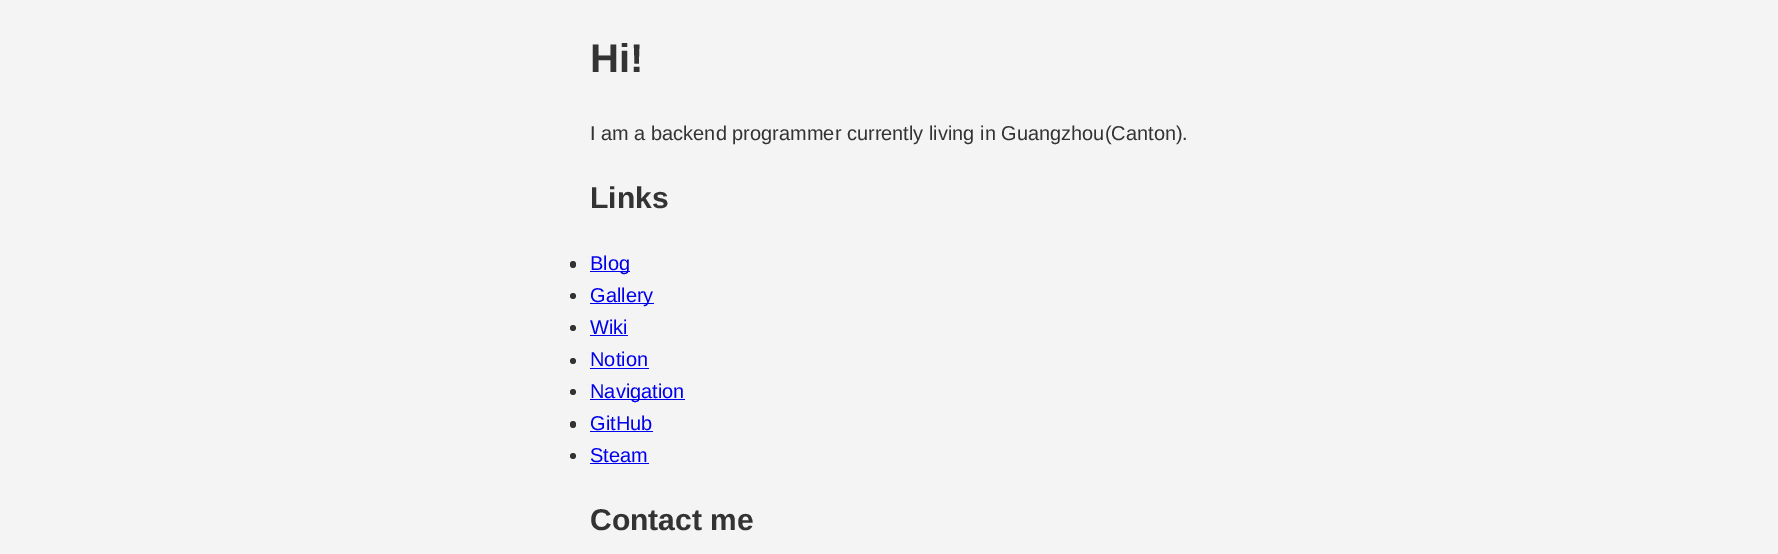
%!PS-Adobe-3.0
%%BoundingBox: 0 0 1778 554
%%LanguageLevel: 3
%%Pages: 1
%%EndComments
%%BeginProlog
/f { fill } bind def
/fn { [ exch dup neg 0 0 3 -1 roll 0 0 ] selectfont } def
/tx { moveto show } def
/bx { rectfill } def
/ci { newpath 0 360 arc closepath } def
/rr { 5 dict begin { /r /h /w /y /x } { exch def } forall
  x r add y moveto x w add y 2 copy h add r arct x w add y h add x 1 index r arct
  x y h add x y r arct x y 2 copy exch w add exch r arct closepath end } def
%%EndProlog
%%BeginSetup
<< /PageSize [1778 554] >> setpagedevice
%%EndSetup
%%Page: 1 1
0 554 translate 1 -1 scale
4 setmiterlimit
0.957 setgray
0 0 1778 554 bx
/LiberationSans-Bold 40 fn
0.2 setgray
(Hi!) 590 72 tx
/LiberationSans-Regular 20 fn
(I am a backend programmer currently living in Guangzhou\(Canton\).) 590 140 tx
/LiberationSans-Bold 30 fn
(Links) 590 208 tx
570 261 6 7 3 rr f
0 0 0.933 setrgbcolor
590 271 40 1 bx
/LiberationSans-Regular 20 fn
(Blog) 590 270 tx
0.2 setgray
573 296 3 ci f
0 0 0.933 setrgbcolor
590 303 64 1 bx
(Gallery) 590 302 tx
0.2 setgray
573 328 3 ci f
0 0 0.933 setrgbcolor
(Wiki) 590 334 tx
590 335 38 1 bx
0.2 setgray
573 361 3 ci f
0 0 0.933 setrgbcolor
(Notion) 590 366 tx
590 368 59 1 bx
0.2 setgray
573 392 3 ci f
0 0 0.933 setrgbcolor
590 399 95 1 bx
(Navigation) 590 398 tx
0.2 setgray
570 421 6 7 3 rr f
0 0 0.933 setrgbcolor
(GitHub) 590 430 tx
590 431 63 1 bx
0.2 setgray
573 456 3 ci f
0 0 0.933 setrgbcolor
(Steam) 590 462 tx
590 463 59 1 bx
/LiberationSans-Bold 30 fn
0.2 setgray
(Contact me) 590 530 tx
showpage
%%EOF
